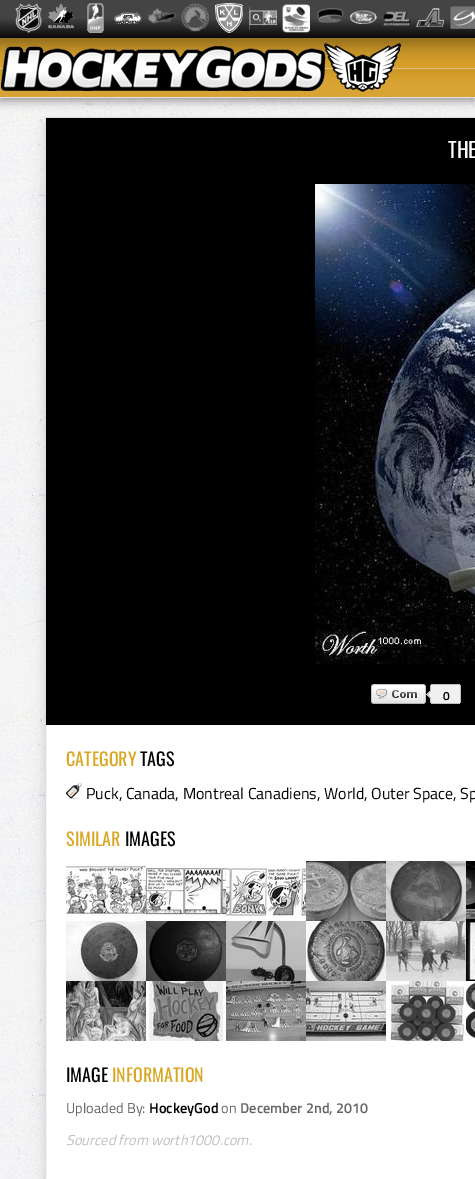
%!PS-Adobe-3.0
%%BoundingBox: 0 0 475 1179
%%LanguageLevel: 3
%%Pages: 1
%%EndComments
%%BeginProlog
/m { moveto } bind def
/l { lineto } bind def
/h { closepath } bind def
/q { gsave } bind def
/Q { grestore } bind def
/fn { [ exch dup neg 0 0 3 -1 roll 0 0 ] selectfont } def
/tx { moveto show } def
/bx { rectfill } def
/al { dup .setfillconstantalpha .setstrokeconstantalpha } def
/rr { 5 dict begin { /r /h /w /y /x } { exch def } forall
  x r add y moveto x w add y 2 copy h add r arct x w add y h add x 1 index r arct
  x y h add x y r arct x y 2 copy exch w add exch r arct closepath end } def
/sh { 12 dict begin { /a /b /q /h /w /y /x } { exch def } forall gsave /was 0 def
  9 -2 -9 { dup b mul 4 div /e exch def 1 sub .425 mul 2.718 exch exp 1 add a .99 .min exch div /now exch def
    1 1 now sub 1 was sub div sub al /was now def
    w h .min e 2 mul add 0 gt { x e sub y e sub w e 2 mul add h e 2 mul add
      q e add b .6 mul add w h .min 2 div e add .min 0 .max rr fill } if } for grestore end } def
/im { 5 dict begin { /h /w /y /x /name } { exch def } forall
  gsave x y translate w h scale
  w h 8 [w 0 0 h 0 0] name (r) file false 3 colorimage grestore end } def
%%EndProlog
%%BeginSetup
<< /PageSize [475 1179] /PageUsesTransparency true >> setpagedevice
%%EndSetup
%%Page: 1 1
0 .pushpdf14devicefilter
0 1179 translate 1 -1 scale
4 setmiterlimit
1 setgray
0 0 475 1179 bx
(image0.raw) 0 98 475 1081 im
q 0 0 m 475 0 l 475 38 l 0 38 l h clip newpath
<< /ShadingType 2 /ColorSpace /DeviceRGB /Coords [238 0 238 38] /Extend [true true] /Function << /FunctionType 3 /Domain [0 1] /Functions [<< /FunctionType 2 /Domain [0 1] /C0 [0.267 0.267 0.267] /C1 [0.267 0.267 0.267] /N 1 >> << /FunctionType 2 /Domain [0 1] /C0 [0.267 0.267 0.267] /C1 [0.247 0.247 0.247] /N 1 >> << /FunctionType 2 /Domain [0 1] /C0 [0.247 0.247 0.247] /C1 [0.039 0.031 0.035] /N 1 >>] /Bounds [0.5 0.51] /Encode [0 1 0 1 0 1] >> >> shfill Q
(image1.raw) 15 3 27 30 im
(image2.raw) 47 3 28 26 im
(image3.raw) 87 3 17 30 im
(image4.raw) 114 12 28 12 im
(image5.raw) 148 8 28 16 im
(image6.raw) 181 3 28 29 im
(image7.raw) 215 3 28 30 im
(image8.raw) 249 6 28 25 im
(image9.raw) 282 4 28 29 im
(image10.raw) 317 8 27 15 im
(image11.raw) 349 10 28 14 im
(image12.raw) 383 11 28 15 im
(image13.raw) 416 8 28 19 im
(image14.raw) 450 6 25 23 im
0 setgray
0 41 475 60 0 5 0.4 sh
(image15.raw) 0 38 475 60 im
(image16.raw) 1 43 400 49 im
45 121 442 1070 0 4 0.08 sh
47 131 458 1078 0 10 0.08 sh
1 setgray
46 725 429 454 bx
0.867 setgray
45.5 117.5 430 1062 rectstroke
0 setgray
46 118 429 607 bx
/Oswald-Regular 21 fn
1 setgray
(THE) 448 158 tx
(image17.raw) 315 184 160 480 im
(image18.raw) 371 684 55 20 im
(image19.raw) 426 684 35 20 im
/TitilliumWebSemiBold-SemiBold 12 fn
0 setgray
(0) 443 700 tx
/Oswald-Regular 18 fn
0.855 0.647 0.125 setrgbcolor
(CATEGORY) 66 766 tx
0 setgray
(TAGS) 140 766 tx
(image20.raw) 66 783 16 16 im
/TitilliumWeb-Regular 16 fn
(Puck, Canada, Montreal Canadiens, World, Outer Space, Sp) 86 799 tx
/Oswald-Regular 18 fn
0.855 0.647 0.125 setrgbcolor
(SIMILAR) 66 846 tx
0 setgray
(IMAGES) 125 846 tx
(image21.raw) 66 861 80 56 im
(image22.raw) 146 866 80 51 im
(image23.raw) 226 866 80 55 im
(image24.raw) 306 861 80 60 im
(image25.raw) 386 861 80 60 im
(image26.raw) 466 861 9 60 im
(image27.raw) 66 921 80 60 im
(image28.raw) 146 921 80 60 im
(image29.raw) 226 921 80 60 im
(image30.raw) 306 921 80 60 im
(image31.raw) 386 921 80 60 im
(image32.raw) 466 921 9 60 im
(image33.raw) 66 981 80 60 im
(image34.raw) 147 981 79 60 im
(image35.raw) 226 981 80 60 im
(image36.raw) 306 981 80 60 im
(image37.raw) 386 981 80 60 im
(image38.raw) 466 982 9 58 im
(IMAGE) 66 1082 tx
0.855 0.647 0.125 setrgbcolor
(INFORMATION) 112 1082 tx
/TitilliumWeb-Regular 14.4 fn
0.4 setgray
(Uploaded By:) 66 1113 tx
/TitilliumWebSemiBold-SemiBold 14.4 fn
0 setgray
(HockeyGod) 149 1113 tx
/TitilliumWeb-Regular 14.4 fn
0.4 setgray
(on) 221 1113 tx
/TitilliumWebSemiBold-SemiBold 14.4 fn
(December 2nd, 2010) 240 1113 tx
/TitilliumWeb-Italic 14.4 fn
0.753 setgray
(Sourced from worth1000.com.) 66 1145 tx
.poppdf14devicefilter showpage
%%EOF
